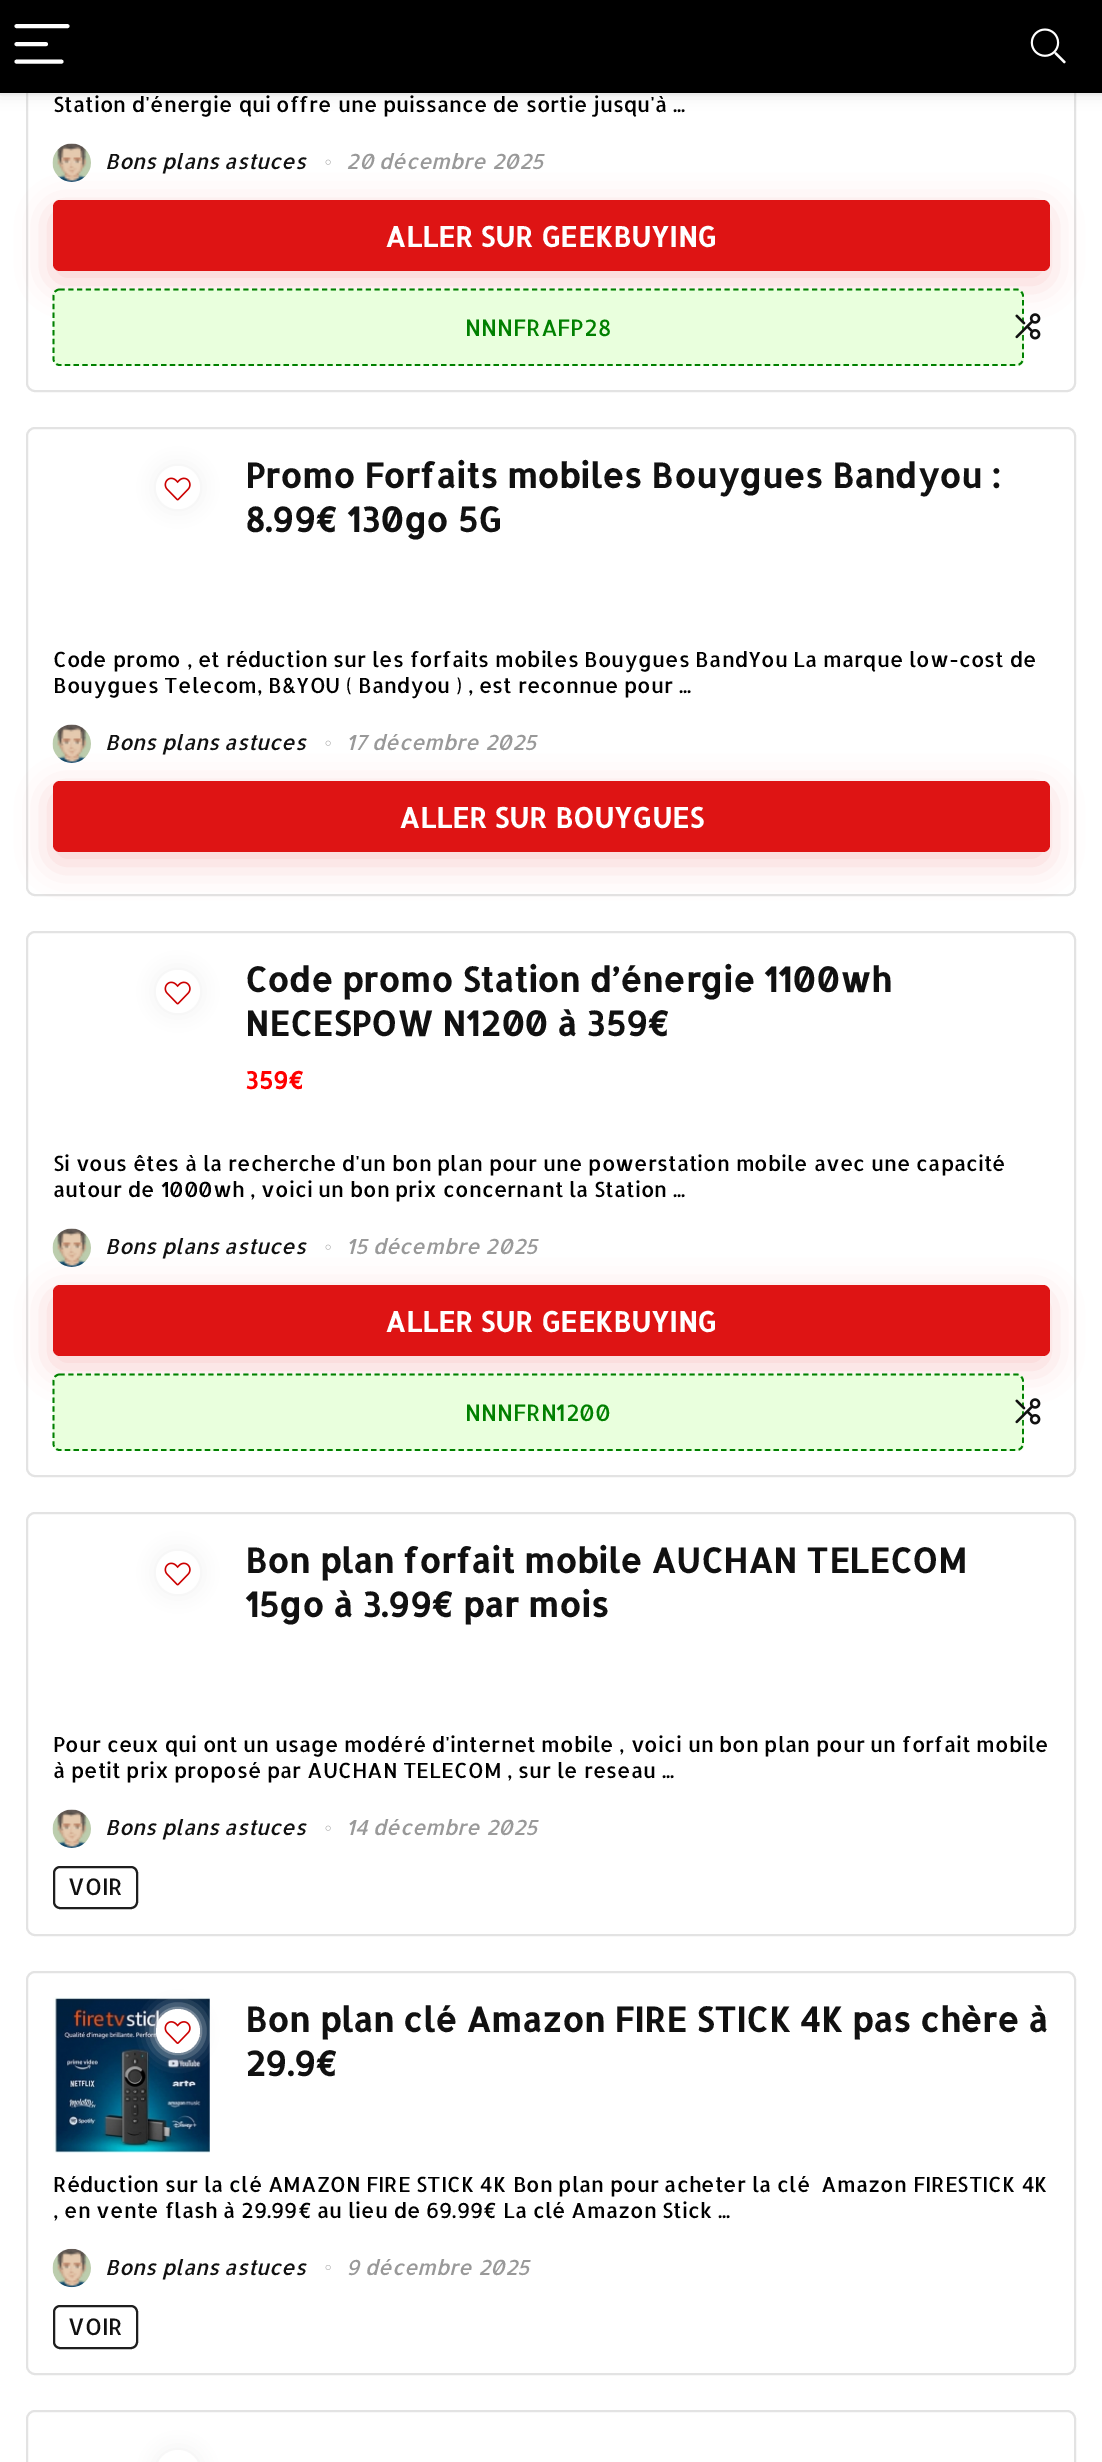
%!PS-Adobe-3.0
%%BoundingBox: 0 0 1102 2462
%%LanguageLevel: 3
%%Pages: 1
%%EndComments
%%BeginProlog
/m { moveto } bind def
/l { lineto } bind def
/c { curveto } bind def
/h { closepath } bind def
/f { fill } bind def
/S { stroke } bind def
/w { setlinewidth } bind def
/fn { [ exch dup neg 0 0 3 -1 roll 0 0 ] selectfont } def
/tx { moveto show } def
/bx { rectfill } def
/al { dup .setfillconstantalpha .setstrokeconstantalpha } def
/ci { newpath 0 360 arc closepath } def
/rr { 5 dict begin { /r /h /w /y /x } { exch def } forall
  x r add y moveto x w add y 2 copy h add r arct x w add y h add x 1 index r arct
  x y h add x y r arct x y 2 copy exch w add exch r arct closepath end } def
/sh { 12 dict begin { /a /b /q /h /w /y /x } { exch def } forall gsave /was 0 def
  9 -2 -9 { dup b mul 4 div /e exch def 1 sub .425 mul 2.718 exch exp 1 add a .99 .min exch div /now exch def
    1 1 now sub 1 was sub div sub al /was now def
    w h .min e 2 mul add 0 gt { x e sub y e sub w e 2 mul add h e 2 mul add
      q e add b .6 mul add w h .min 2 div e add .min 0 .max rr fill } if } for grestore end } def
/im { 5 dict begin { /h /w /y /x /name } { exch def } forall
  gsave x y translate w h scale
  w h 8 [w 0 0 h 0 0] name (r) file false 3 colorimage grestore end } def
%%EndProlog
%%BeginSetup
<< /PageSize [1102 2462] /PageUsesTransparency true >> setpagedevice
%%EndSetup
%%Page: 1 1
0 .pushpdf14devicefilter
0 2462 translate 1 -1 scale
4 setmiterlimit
1 setgray
0 0 1102 2462 bx
0.89 setgray
2 w
27 -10 1048 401 8 rr S
0.03 al
0 setgray
-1 -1 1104 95 rectstroke
1 al
0 2 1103 93 0 7 0.1 sh
0 0 1102 93 bx
1 setgray
3.9 w
1 setlinecap
16.5 26 m 67.5 26 l 16.5 44 m 46 44 l 16.5 61.5 m 61.5 61.5 l S
(image0.raw) 1030 28 36 36 im
/Allerta-Regular 21 fn
0 setgray
(Station d'énergie qui offre une puissance de sortie jusqu'à ...) 53 112 tx
(image1.raw) 52 143 39 39 im
/Allerta-Italic 21 fn
0.067 setgray
(Bons plans astuces) 105 169 tx
(image2.raw) 325 159 6 6 im
0.6 setgray
(20 décembre 2025) 346 169 tx
0.871 0.078 0.078 setrgbcolor
51 210 997 72 7 16.5 0.2 sh
53 200 997 71 7 rr f
/Allerta-Bold 28 fn
1 setgray
(ALLER SUR GEEKBUYING) 385 247 tx
0.914 1 0.867 setrgbcolor
53 289 971 77 7 rr f
0 0.502 0 setrgbcolor
1.8 w
0 setlinecap
[5.25 3.5] 0 setdash
59.5 289.5 m 1017 289.5 l 1020 289.5 1023 292.5 1023 296 c 1023 359 l 1023 362 1020 365 1017 365 c 59.5 365 l 56 365 53.5 362 53.5 359 c 53.5 296 l 53.5 292.5 56 289.5 59.5 289.5 c h S
/Allerta-Regular 22.75 fn
(NNNFRAFP28) 465 336 tx
(image3.raw) 1015 313 26 27 im
0.89 setgray
2 w
[] 0 setdash
27 428 1048 467 8 rr S
0.937 setgray
156 466 44 43 21.5 9 1 sh
1 setgray
156 466 44 43 21.5 rr f
(image4.raw) 164 477 27 24 im
/Allerta-Bold 34.1 fn
0.067 setgray
(Promo Forfaits mobiles Bouygues Bandyou :) 245 488 tx
(8.99€ 130go 5G) 245 532 tx
/Allerta-Regular 21 fn
0 setgray
(Code promo , et réduction sur les forfaits mobiles Bouygues BandYou La marque low-cost de) 53 667 tx
(Bouygues Telecom, B&YOU \( Bandyou \) , est reconnue pour ...) 53 693 tx
(image1.raw) 52 724 39 39 im
/Allerta-Italic 21 fn
0.067 setgray
(Bons plans astuces) 105 750 tx
(image2.raw) 325 740 6 6 im
0.6 setgray
(17 décembre 2025) 346 750 tx
0.871 0.078 0.078 setrgbcolor
51 791 997 72 7 16.5 0.2 sh
53 781 997 71 7 rr f
/Allerta-Bold 28 fn
1 setgray
(ALLER SUR BOUYGUES) 399 828 tx
0.89 setgray
27 932 1048 544 8 rr S
0.937 setgray
156 970 44 43 21.5 9 1 sh
1 setgray
156 970 44 43 21.5 rr f
(image4.raw) 164 981 27 24 im
/Allerta-Bold 34.1 fn
0.067 setgray
(Code promo Station d’énergie 1100wh) 245 992 tx
(NECESPOW N1200 à 359€) 245 1036 tx
/Allerta-Bold 24 fn
1 0 0 setrgbcolor
(359€) 245 1089 tx
/Allerta-Regular 21 fn
0 setgray
(Si vous êtes à la recherche d'un bon plan pour une powerstation mobile avec une capacité) 53 1171 tx
(autour de 1000wh , voici un bon prix concernant la Station ...) 53 1197 tx
(image1.raw) 52 1228 39 39 im
/Allerta-Italic 21 fn
0.067 setgray
(Bons plans astuces) 105 1254 tx
(image2.raw) 325 1244 6 6 im
0.6 setgray
(15 décembre 2025) 346 1254 tx
0.871 0.078 0.078 setrgbcolor
51 1295 997 72 7 16.5 0.2 sh
53 1285 997 71 7 rr f
/Allerta-Bold 28 fn
1 setgray
(ALLER SUR GEEKBUYING) 385 1332 tx
0.914 1 0.867 setrgbcolor
53 1374 971 77 7 rr f
0 0.502 0 setrgbcolor
1.8 w
[5.25 3.5] 0 setdash
59.5 1374.5 m 1017 1374.5 l 1020 1374.5 1023 1377.5 1023 1381 c 1023 1444 l 1023 1447 1020 1450 1017 1450 c 59.5 1450 l 56 1450 53.5 1447 53.5 1444 c 53.5 1381 l 53.5 1377.5 56 1374.5 59.5 1374.5 c h S
/Allerta-Regular 22.75 fn
(NNNFRN1200) 465 1421 tx
(image3.raw) 1015 1398 26 27 im
0.89 setgray
2 w
[] 0 setdash
27 1513 1048 422 8 rr S
0.937 setgray
156 1551 44 43 21.5 9 1 sh
1 setgray
156 1551 44 43 21.5 rr f
(image4.raw) 164 1562 27 24 im
/Allerta-Bold 34.1 fn
0.067 setgray
(Bon plan forfait mobile AUCHAN TELECOM) 245 1573 tx
(15go à 3.99€ par mois) 245 1617 tx
/Allerta-Regular 21 fn
0 setgray
(Pour ceux qui ont un usage modéré d'internet mobile , voici un bon plan pour un forfait mobile) 53 1752 tx
(à petit prix proposé par AUCHAN TELECOM , sur le reseau ...) 53 1778 tx
(image1.raw) 52 1809 39 39 im
/Allerta-Italic 21 fn
0.067 setgray
(Bons plans astuces) 105 1835 tx
(image2.raw) 325 1825 6 6 im
0.6 setgray
(14 décembre 2025) 346 1835 tx
0.118 setgray
54 1867 83 41 6 rr S
/Allerta-Regular 22.75 fn
0.067 setgray
(VOIR) 68 1895 tx
0.89 setgray
27 1972 1048 402 8 rr S
(image6.raw) 53 1997 157 156 im
0.937 setgray
156 2009 44 44 22 9 1 sh
1 setgray
178 2031 22 ci f
(image5.raw) 164 2021 27 23 im
/Allerta-Bold 34.1 fn
0.067 setgray
(Bon plan clé Amazon FIRE STICK 4K pas chère à) 245 2032 tx
(29.9€) 245 2076 tx
/Allerta-Regular 21 fn
0 setgray
(Réduction sur la clé AMAZON FIRE STICK 4K Bon plan pour acheter la clé  Amazon FIRESTICK 4K) 53 2192 tx
(, en vente flash à 29.99€ au lieu de 69.99€ La clé Amazon Stick ...) 53 2218 tx
(image7.raw) 52 2248 39 40 im
/Allerta-Italic 21 fn
0.067 setgray
(Bons plans astuces) 105 2275 tx
(image8.raw) 325 2265 6 5 im
0.6 setgray
(9 décembre 2025) 346 2275 tx
0.118 setgray
54 2306 83 42 6 rr S
/Allerta-Regular 22.75 fn
0.067 setgray
(VOIR) 68 2335 tx
0.89 setgray
27 2411 1048 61 8 rr S
0.937 setgray
156 2450 44 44 22 9 1 sh
1 setgray
156 2450 44 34 22 rr f
.poppdf14devicefilter showpage
%%EOF
